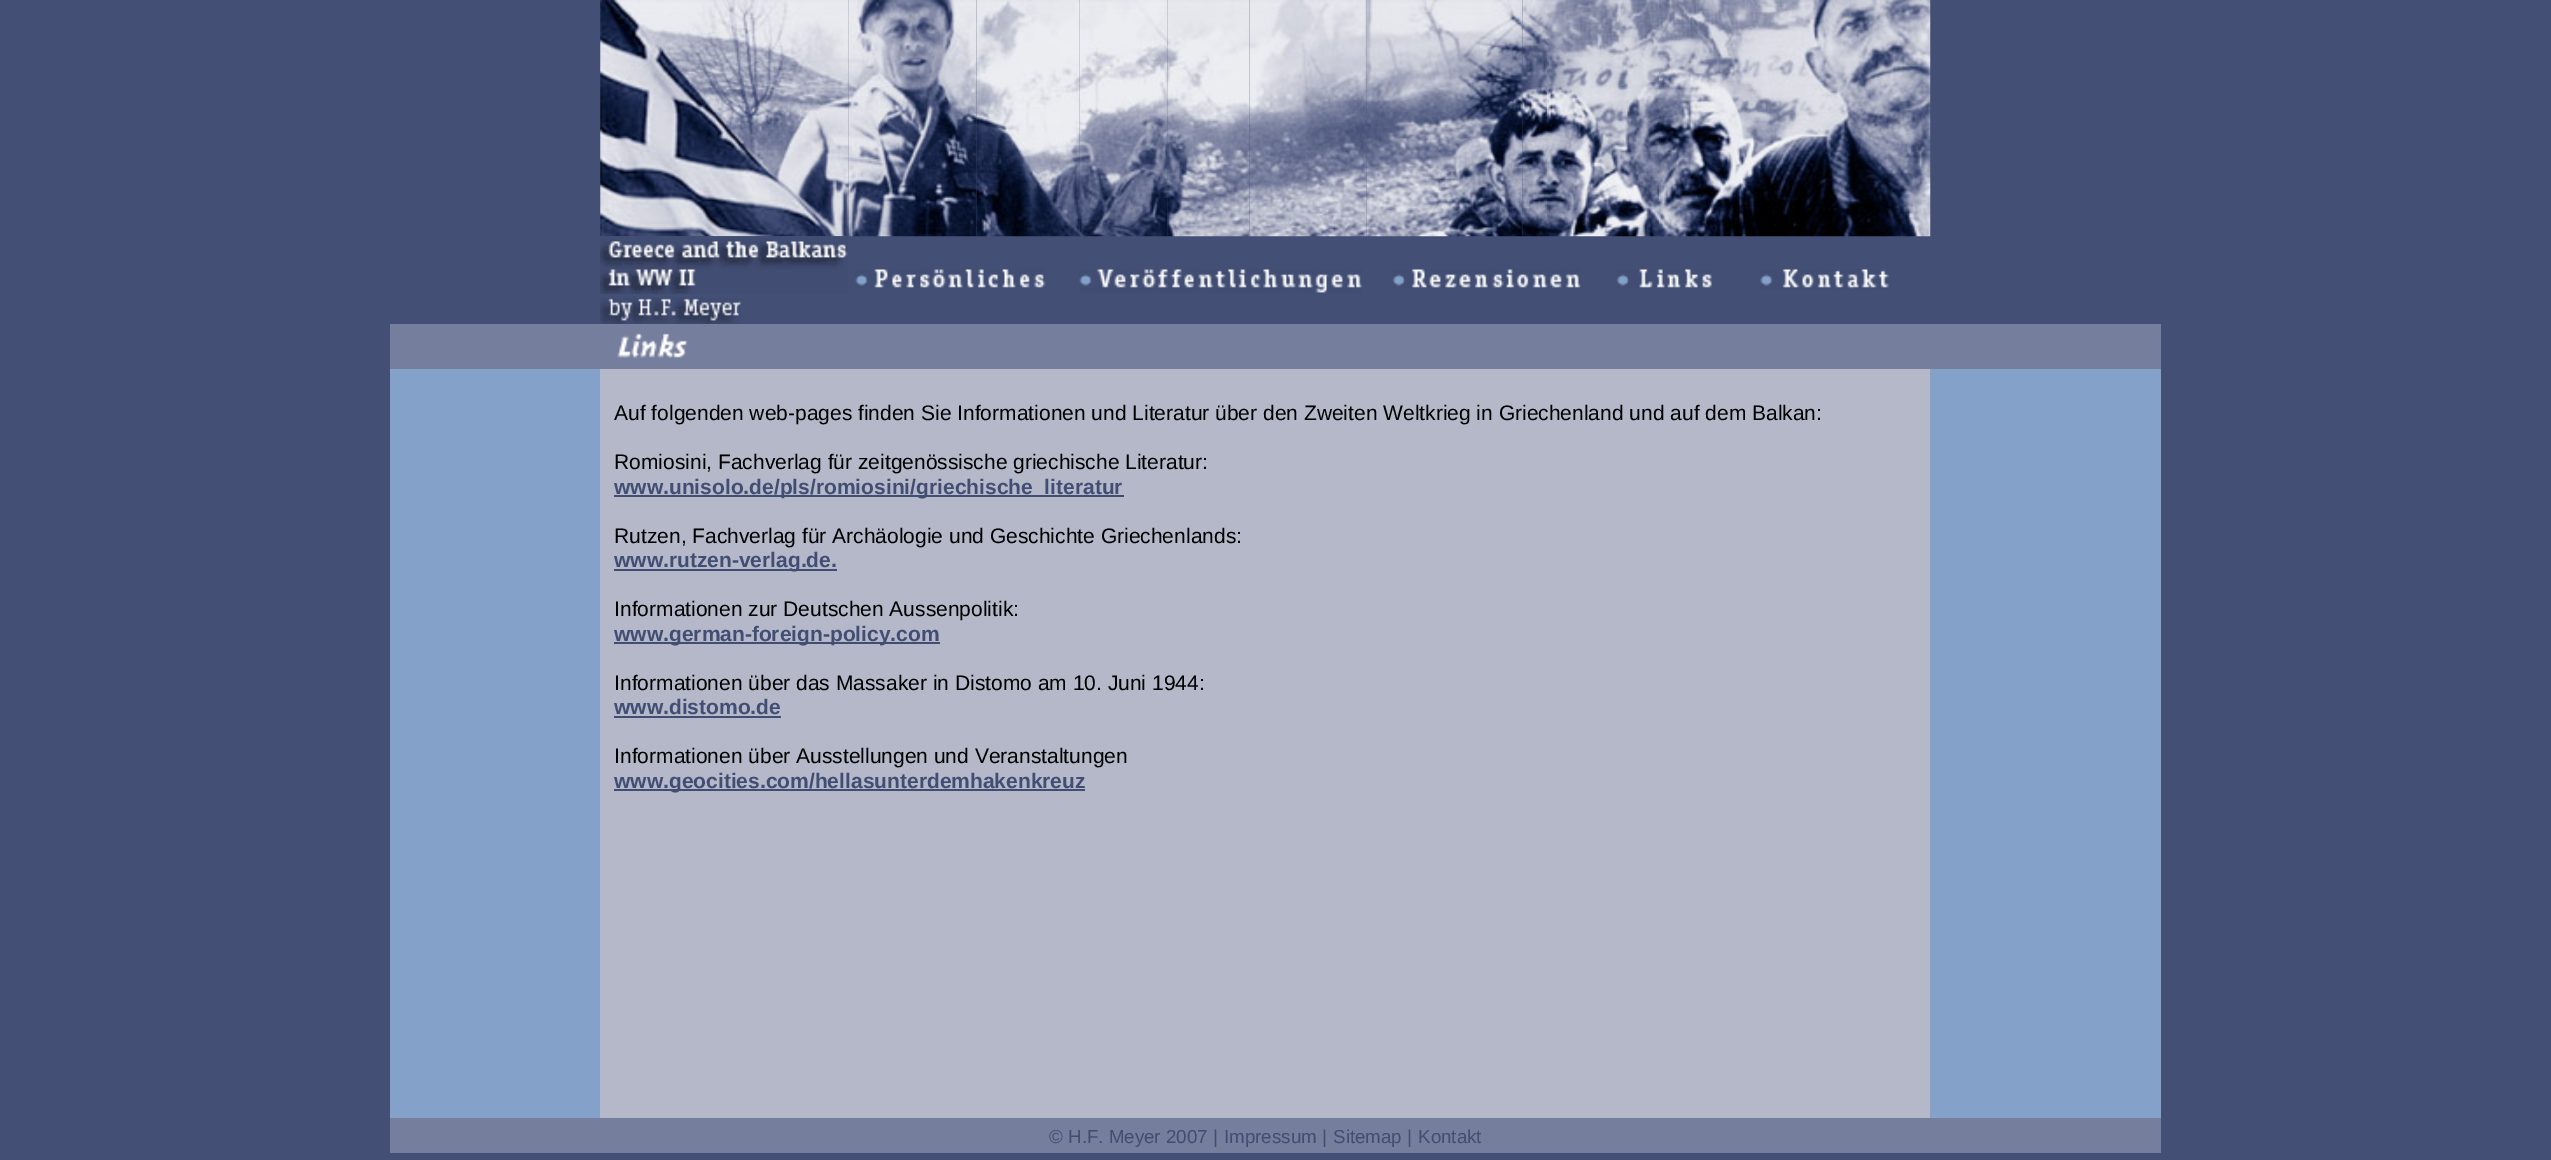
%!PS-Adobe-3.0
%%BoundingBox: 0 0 2551 1160
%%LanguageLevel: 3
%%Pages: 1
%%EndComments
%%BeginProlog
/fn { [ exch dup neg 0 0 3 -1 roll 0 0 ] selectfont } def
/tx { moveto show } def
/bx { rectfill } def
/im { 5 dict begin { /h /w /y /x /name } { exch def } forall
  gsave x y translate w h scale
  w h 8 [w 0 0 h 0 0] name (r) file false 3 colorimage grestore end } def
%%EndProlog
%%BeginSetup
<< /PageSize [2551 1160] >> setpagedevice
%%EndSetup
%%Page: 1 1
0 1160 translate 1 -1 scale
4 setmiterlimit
0.263 0.31 0.455 setrgbcolor
0 0 2551 1160 bx
(image0.raw) 600 0 249 237 im
(image1.raw) 848 0 129 237 im
(image2.raw) 976 0 104 237 im
(image3.raw) 1079 0 89 237 im
(image4.raw) 1167 0 83 237 im
(image5.raw) 1249 0 118 237 im
(image6.raw) 1366 0 157 237 im
(image7.raw) 1522 0 25 237 im
(image8.raw) 1547 0 112 237 im
(image9.raw) 1659 0 272 237 im
(image10.raw) 600 236 248 58 im
(image11.raw) 855 269 191 19 im
(image12.raw) 1079 269 283 24 im
(image13.raw) 1392 269 189 19 im
(image14.raw) 1616 269 96 19 im
(image15.raw) 1760 269 129 20 im
(image16.raw) 600 298 141 26 im
0.463 0.494 0.616 setrgbcolor
390 324 1771 45 bx
(image17.raw) 617 333 71 25 im
0.518 0.635 0.788 setrgbcolor
390 369 210 749 bx
0.706 0.722 0.788 setrgbcolor
600 369 1330 749 bx
/LiberationSans-Regular 21 fn
0 setgray
(Auf folgenden web-pages finden Sie Informationen und Literatur über den Zweiten Weltkrieg in Griechenland und auf dem Balkan:) 614 420 tx
(Romiosini, Fachverlag für zeitgenössische griechische Literatur:) 614 469 tx
0.255 0.302 0.451 setrgbcolor
614 495 510 2 bx
/LiberationSans-Bold 21 fn
(www.unisolo.de/pls/romiosini/griechische_literatur) 614 494 tx
/LiberationSans-Regular 21 fn
0 setgray
(Rutzen, Fachverlag für Archäologie und Geschichte Griechenlands:) 614 543 tx
0.255 0.302 0.451 setrgbcolor
614 569 223 2 bx
/LiberationSans-Bold 21 fn
(www.rutzen-verlag.de.) 614 567 tx
/LiberationSans-Regular 21 fn
0 setgray
(Informationen zur Deutschen Aussenpolitik:) 614 616 tx
0.255 0.302 0.451 setrgbcolor
614 642 326 2 bx
/LiberationSans-Bold 21 fn
(www.german-foreign-policy.com) 614 641 tx
/LiberationSans-Regular 21 fn
0 setgray
(Informationen über das Massaker in Distomo am 10. Juni 1944:) 614 690 tx
/LiberationSans-Bold 21 fn
0.255 0.302 0.451 setrgbcolor
(www.distomo.de) 614 714 tx
614 716 167 2 bx
/LiberationSans-Regular 21 fn
0 setgray
(Informationen über Ausstellungen und Veranstaltungen) 614 763 tx
0.255 0.302 0.451 setrgbcolor
614 789 471 2 bx
/LiberationSans-Bold 21 fn
(www.geocities.com/hellasunterdemhakenkreuz) 614 788 tx
0.518 0.635 0.788 setrgbcolor
1930 369 231 749 bx
0.463 0.494 0.616 setrgbcolor
390 1118 1771 35 bx
/LiberationSans-Regular 18.75 fn
0.255 0.302 0.451 setrgbcolor
(© H.F. Meyer 2007 |) 1049 1143 tx
(Impressum |) 1224 1143 tx
(Sitemap |) 1333 1143 tx
(Kontakt) 1418 1143 tx
showpage
%%EOF
